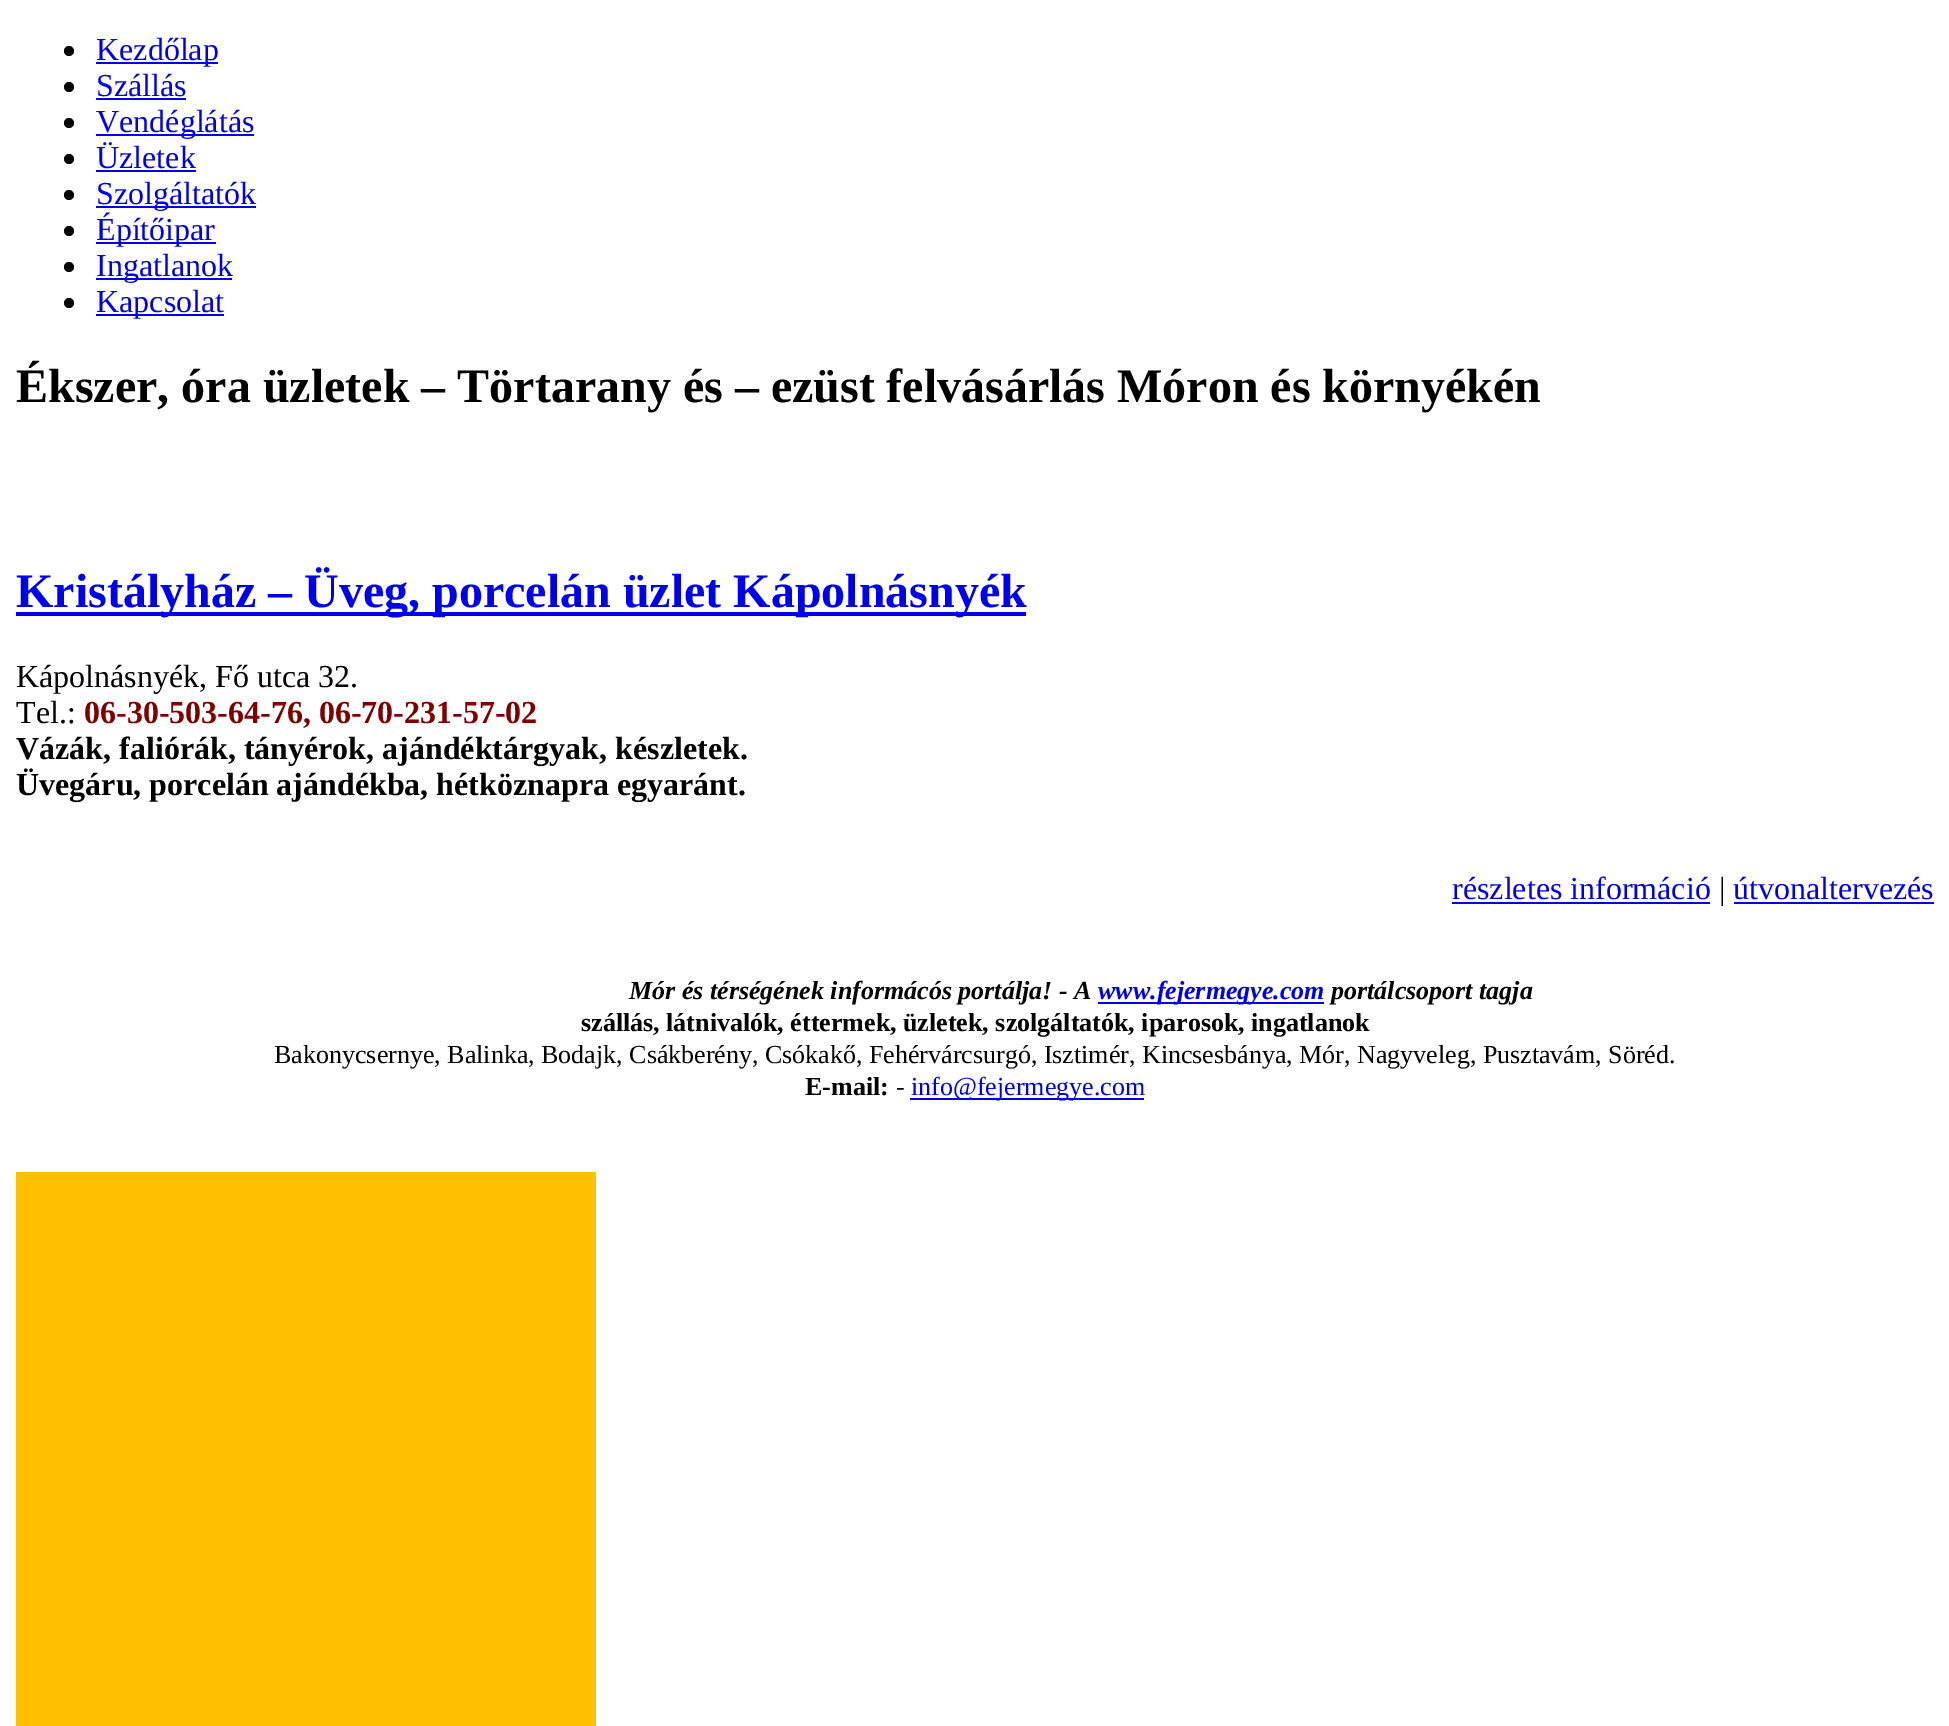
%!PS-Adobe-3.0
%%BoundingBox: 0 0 1949 1726
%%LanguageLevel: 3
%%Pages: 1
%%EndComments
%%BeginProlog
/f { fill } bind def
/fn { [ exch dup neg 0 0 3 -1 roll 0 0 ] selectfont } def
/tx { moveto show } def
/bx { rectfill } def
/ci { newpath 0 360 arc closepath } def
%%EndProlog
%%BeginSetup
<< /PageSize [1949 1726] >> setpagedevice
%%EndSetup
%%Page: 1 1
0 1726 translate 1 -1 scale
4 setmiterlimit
1 setgray
0 0 1949 1726 bx
0 setgray
69 51 5 ci f
0 0 0.933 setrgbcolor
96 62 122 2 bx
/LiberationSerif-Regular 32 fn
(Kezdőlap) 96 60 tx
0 setgray
69 87 5 ci f
0 0 0.933 setrgbcolor
(Szállás) 96 96 tx
96 98 90 2 bx
0 setgray
69 123 5 ci f
0 0 0.933 setrgbcolor
96 134 158 2 bx
(Vendéglátás) 96 132 tx
0 setgray
69 159 5 ci f
0 0 0.933 setrgbcolor
(Üzletek) 96 168 tx
96 170 100 2 bx
0 setgray
69 195 5 ci f
0 0 0.933 setrgbcolor
96 206 160 2 bx
(Szolgáltatók) 96 204 tx
0 setgray
69 231 5 ci f
0 0 0.933 setrgbcolor
96 242 120 2 bx
(Építőipar) 96 240 tx
0 setgray
69 267 5 ci f
0 0 0.933 setrgbcolor
96 278 136 2 bx
(Ingatlanok) 96 276 tx
0 setgray
69 303 5 ci f
0 0 0.933 setrgbcolor
96 314 128 2 bx
(Kapcsolat) 96 312 tx
/LiberationSerif-Bold 48 fn
0 setgray
(Ékszer, óra üzletek – Törtarany és – ezüst felvásárlás Móron és környékén) 16 402 tx
0 0 0.933 setrgbcolor
16 612 1010 4 bx
(Kristályház – Üveg, porcelán üzlet Kápolnásnyék) 16 607 tx
/LiberationSerif-Regular 32 fn
0 setgray
(Kápolnásnyék, Fő utca 32.) 16 687 tx
(Tel.:) 16 723 tx
/LiberationSerif-Bold 32 fn
0.502 0 0 setrgbcolor
(06-30-503-64-76, 06-70-231-57-02) 84 723 tx
0 setgray
(Vázák, faliórák, tányérok, ajándéktárgyak, készletek.) 16 759 tx
(Üvegáru, porcelán ajándékba, hétköznapra egyaránt.) 16 795 tx
/LiberationSerif-Regular 32 fn
0 0 0.933 setrgbcolor
(részletes információ) 1452 899 tx
1452 902 258 2 bx
0 setgray
(|) 1719 899 tx
0 0 0.933 setrgbcolor
(útvonaltervezés) 1733 899 tx
1734 902 200 2 bx
/LiberationSerif-BoldItalic 26 fn
0 setgray
(Mór és térségének informácós portálja! - A) 629 999 tx
0 0 0.933 setrgbcolor
1098 1002 226 2 bx
(www.fejermegye.com) 1098 999 tx
0 setgray
(portálcsoport tagja) 1331 999 tx
/LiberationSerif-Bold 26 fn
(szállás, látnivalók, éttermek, üzletek, szolgáltatók, iparosok, ingatlanok) 581 1031 tx
/LiberationSerif-Regular 26 fn
(Bakonycsernye, Balinka, Bodajk, Csákberény, Csókakő, Fehérvárcsurgó, Isztimér, Kincsesbánya, Mór, Nagyveleg, Pusztavám, Söréd.) 274 1063 tx
/LiberationSerif-Bold 26 fn
(E-mail:) 805 1095 tx
/LiberationSerif-Regular 26 fn
(-) 896 1095 tx
0 0 0.933 setrgbcolor
910 1098 234 2 bx
(info@fejermegye.com) 911 1095 tx
1 0.753 0.008 setrgbcolor
16 1172 580 554 bx
showpage
%%EOF
